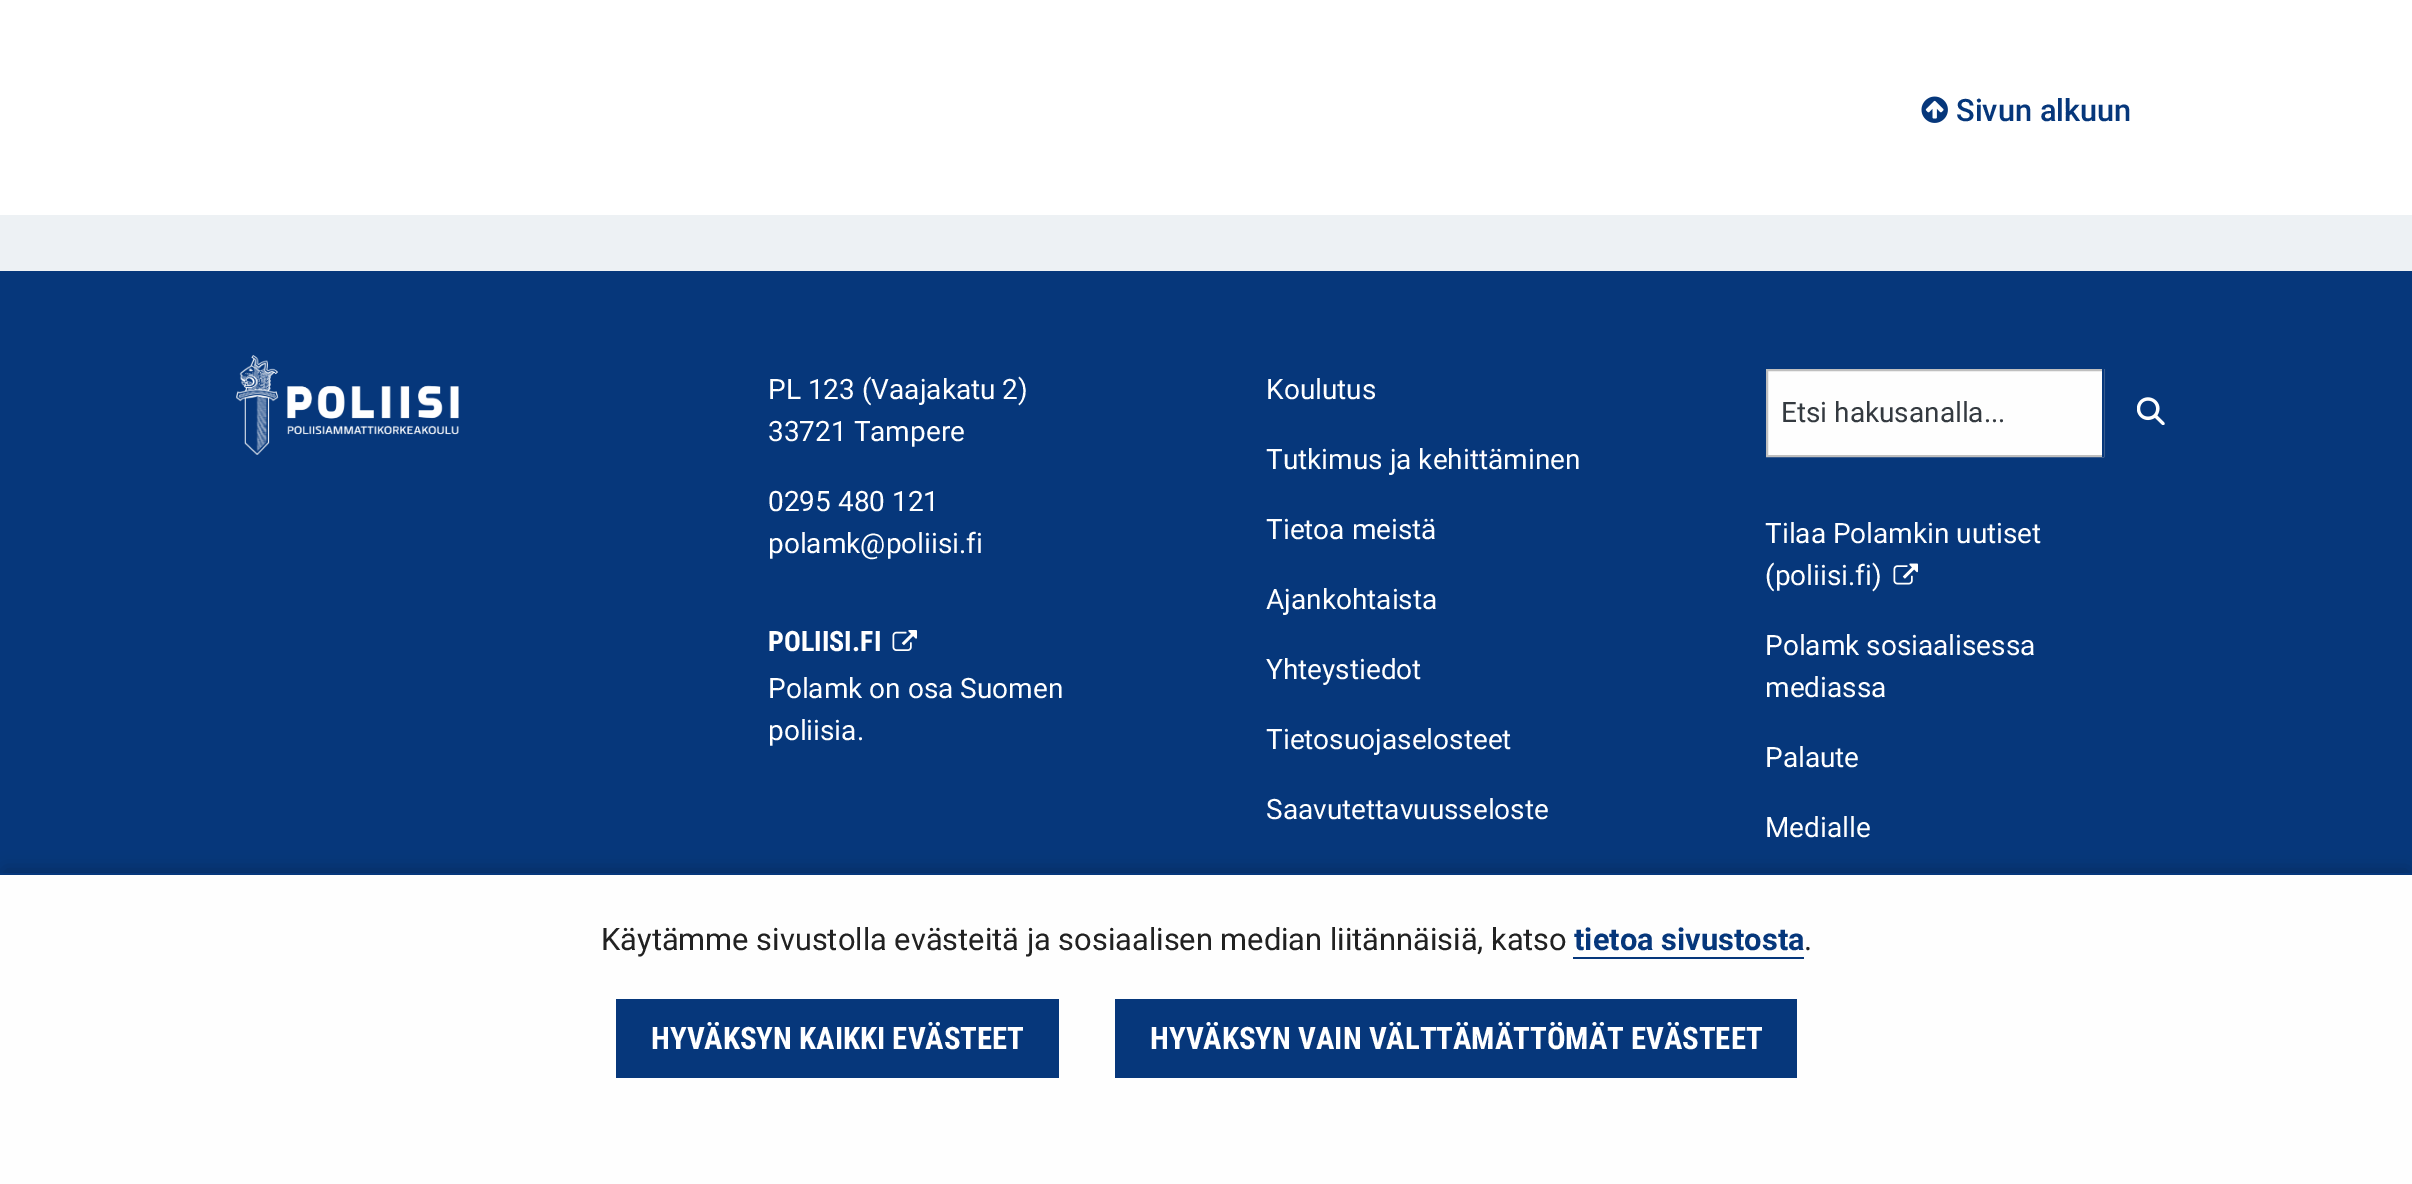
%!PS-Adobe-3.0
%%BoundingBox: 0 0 2412 1184
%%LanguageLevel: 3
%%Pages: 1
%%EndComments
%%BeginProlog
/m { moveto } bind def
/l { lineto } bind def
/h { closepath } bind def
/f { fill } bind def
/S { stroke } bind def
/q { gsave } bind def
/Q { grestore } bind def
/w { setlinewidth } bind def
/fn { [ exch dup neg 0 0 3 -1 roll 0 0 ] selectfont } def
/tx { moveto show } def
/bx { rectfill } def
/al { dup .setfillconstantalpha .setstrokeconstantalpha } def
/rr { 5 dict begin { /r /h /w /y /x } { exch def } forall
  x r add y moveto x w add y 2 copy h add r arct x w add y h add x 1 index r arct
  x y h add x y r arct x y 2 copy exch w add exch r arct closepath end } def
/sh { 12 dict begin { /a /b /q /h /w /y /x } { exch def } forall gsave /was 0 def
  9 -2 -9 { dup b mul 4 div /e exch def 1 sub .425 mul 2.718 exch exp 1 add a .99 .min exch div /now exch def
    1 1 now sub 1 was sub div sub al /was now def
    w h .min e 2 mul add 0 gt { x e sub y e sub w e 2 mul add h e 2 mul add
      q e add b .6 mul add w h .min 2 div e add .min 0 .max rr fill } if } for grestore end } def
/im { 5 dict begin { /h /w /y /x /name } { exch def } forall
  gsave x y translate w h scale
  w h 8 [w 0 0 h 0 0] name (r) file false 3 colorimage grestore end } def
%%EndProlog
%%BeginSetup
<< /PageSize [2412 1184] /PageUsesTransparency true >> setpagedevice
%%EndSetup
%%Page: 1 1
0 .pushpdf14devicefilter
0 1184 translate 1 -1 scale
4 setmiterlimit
1 setgray
0 0 2412 1184 bx
(image0.raw) 1921 96 27 27 im
/Roboto-Medium 30.8 fn
0.024 0.216 0.482 setrgbcolor
(Sivun alkuun) 1956 121 tx
0.929 0.945 0.957 setrgbcolor
0 215 2412 56 bx
0.024 0.216 0.482 setrgbcolor
0 271 2412 602 bx
(image1.raw) 236 355 223 100 im
/Roboto-Regular 28 fn
1 setgray
(PL 123 \(Vaajakatu 2\)) 768 399 tx
(33721 Tampere) 768 441 tx
(0295 480 121) 768 511 tx
(polamk@poliisi.fi) 768 553 tx
/RobotoCondensed-Bold 28 fn
(POLIISI.FI) 768 651 tx
(image2.raw) 892 630 25 21 im
/Roboto-Regular 28 fn
(Polamk on osa Suomen) 768 698 tx
(poliisia.) 768 740 tx
(Koulutus) 1266 399 tx
(Tutkimus ja kehittäminen) 1266 469 tx
(Tietoa meistä) 1266 539 tx
(Ajankohtaista) 1266 609 tx
(Yhteystiedot) 1266 679 tx
(Tietosuojaselosteet) 1266 749 tx
(Saavutettavuusseloste) 1266 819 tx
0.996 setgray
1767 370 m 2103 370 l 2103 456 l 1767 456 l h q f Q
0.749 setgray
2 w
S
0.204 0.227 0.251 setrgbcolor
(Etsi hakusanalla...) 1781 422 tx
0.024 0.216 0.482 setrgbcolor
2102 369 2 88 bx
(image3.raw) 2137 397 28 28 im
1 setgray
(Tilaa Polamkin uutiset) 1765 543 tx
(\(poliisi.fi\)) 1765 585 tx
(image4.raw) 1893 563 25 22 im
(Polamk sosiaalisessa) 1765 655 tx
(mediassa) 1765 697 tx
(Palaute) 1765 767 tx
(Medialle) 1765 837 tx
0 setgray
5 870 2403 301 0 9 0.2 sh
0.996 setgray
0 875 2412 309 bx
0.024 0.216 0.482 setrgbcolor
0 873 2412 2 bx
/Roboto-Regular 30.8 fn
0.129 setgray
(Käytämme sivustolla evästeitä ja sosiaalisen median liitännäisiä, katso) 601 950 tx
/Roboto-Bold 30.8 fn
0.024 0.216 0.482 setrgbcolor
(tietoa sivustosta) 1574 950 tx
1573 957 231 2 bx
/Roboto-Regular 30.8 fn
0.129 setgray
(.) 1804 950 tx
0.024 0.216 0.482 setrgbcolor
616 999 443 79 bx
/RobotoCondensed-Bold 30.8 fn
1 setgray
(HYVÄKSYN KAIKKI EVÄSTEET) 651 1049 tx
0.024 0.216 0.482 setrgbcolor
1115 999 682 79 bx
1 setgray
(HYVÄKSYN VAIN VÄLTTÄMÄTTÖMÄT EVÄSTEET) 1150 1049 tx
.poppdf14devicefilter showpage
%%EOF
